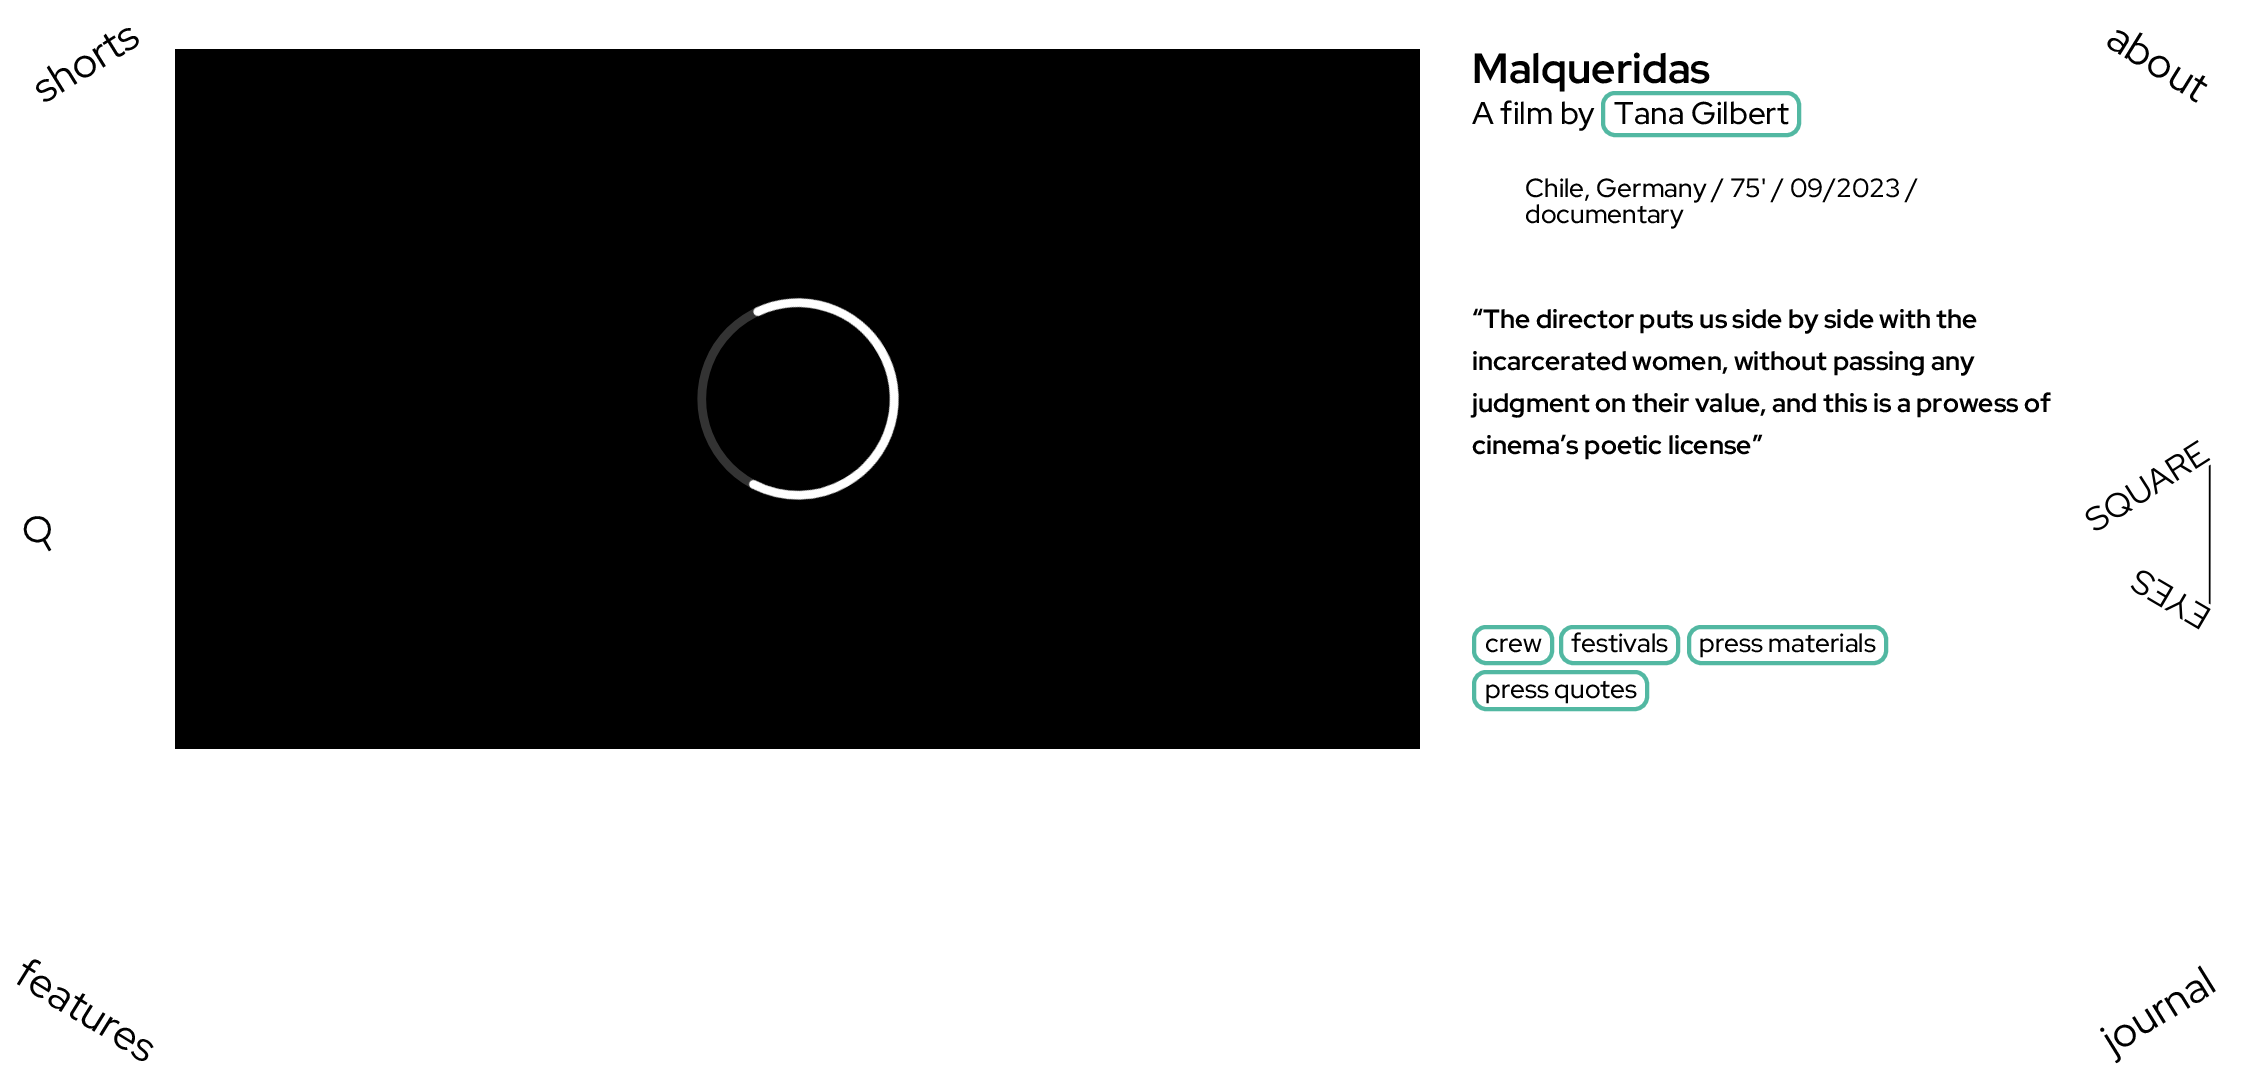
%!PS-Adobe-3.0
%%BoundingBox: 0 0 2243 1072
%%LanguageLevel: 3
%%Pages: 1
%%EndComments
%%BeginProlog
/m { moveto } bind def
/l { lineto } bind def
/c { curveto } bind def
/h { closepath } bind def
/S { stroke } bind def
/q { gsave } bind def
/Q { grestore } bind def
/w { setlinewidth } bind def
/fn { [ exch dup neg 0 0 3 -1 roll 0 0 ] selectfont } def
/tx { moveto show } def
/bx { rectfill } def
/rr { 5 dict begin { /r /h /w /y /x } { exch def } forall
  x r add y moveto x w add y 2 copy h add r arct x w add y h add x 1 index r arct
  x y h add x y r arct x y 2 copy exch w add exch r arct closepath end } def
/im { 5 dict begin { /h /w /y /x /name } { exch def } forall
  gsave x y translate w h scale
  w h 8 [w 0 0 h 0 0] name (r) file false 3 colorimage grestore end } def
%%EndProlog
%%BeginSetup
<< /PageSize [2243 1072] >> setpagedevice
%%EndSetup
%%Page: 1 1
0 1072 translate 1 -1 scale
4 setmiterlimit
1 setgray
0 0 2243 1072 bx
/RedHatDisplay-Regular 42 fn
0 setgray
q 44 104 translate -31.8 rotate 0 0 m (shorts) show Q
q 2104 45 translate 31.8 rotate 0 0 m (about) show Q
q 12 981 translate 31.8 rotate 0 0 m (features) show Q
q 2113 1055 translate -31.8 rotate 0 0 m (journal) show Q
0.004 0.008 0.008 setrgbcolor
2.6 w
37.5 541 m 53.5 541 53.5 517.5 37.5 517.5 c 21 517.5 21 541 37.5 541 c h 44 540 m 50 550.5 l S
(image0.raw) 2085 440 126 190 im
0 setgray
175 49 522 700 bx
(image1.raw) 697 49 723 700 im
/RedHatDisplay-Bold 42 fn
(Malqueridas) 1472 83 tx
/RedHatDisplay-Medium 31.5 fn
(A film by) 1472 124 tx
0.322 0.722 0.635 setrgbcolor
4 w
1603 93 196 42 12 rr S
0 setgray
(Tana Gilbert) 1614 124 tx
/RedHatDisplay-Medium 26.25 fn
(Chile, Germany / 75' / 09/2023 /) 1525 197 tx
(documentary) 1525 223 tx
/RedHatDisplay-Bold 26.25 fn
(“The director puts us side by side with the) 1472 328 tx
(incarcerated women, without passing any) 1472 370 tx
(judgment on their value, and this is a prowess of) 1472 412 tx
(cinema’s poetic license”) 1472 454 tx
0.322 0.722 0.635 setrgbcolor
1474 627 78 36 12 rr S
/RedHatDisplay-Medium 26.25 fn
0 setgray
(crew) 1485 652 tx
0.322 0.722 0.635 setrgbcolor
1561 627 117 36 12 rr S
0 setgray
(festivals) 1571 652 tx
0.322 0.722 0.635 setrgbcolor
1689 627 197 36 12 rr S
0 setgray
(press materials) 1699 652 tx
0.322 0.722 0.635 setrgbcolor
1474 672 173 37 12 rr S
0 setgray
(press quotes) 1485 698 tx
showpage
%%EOF
